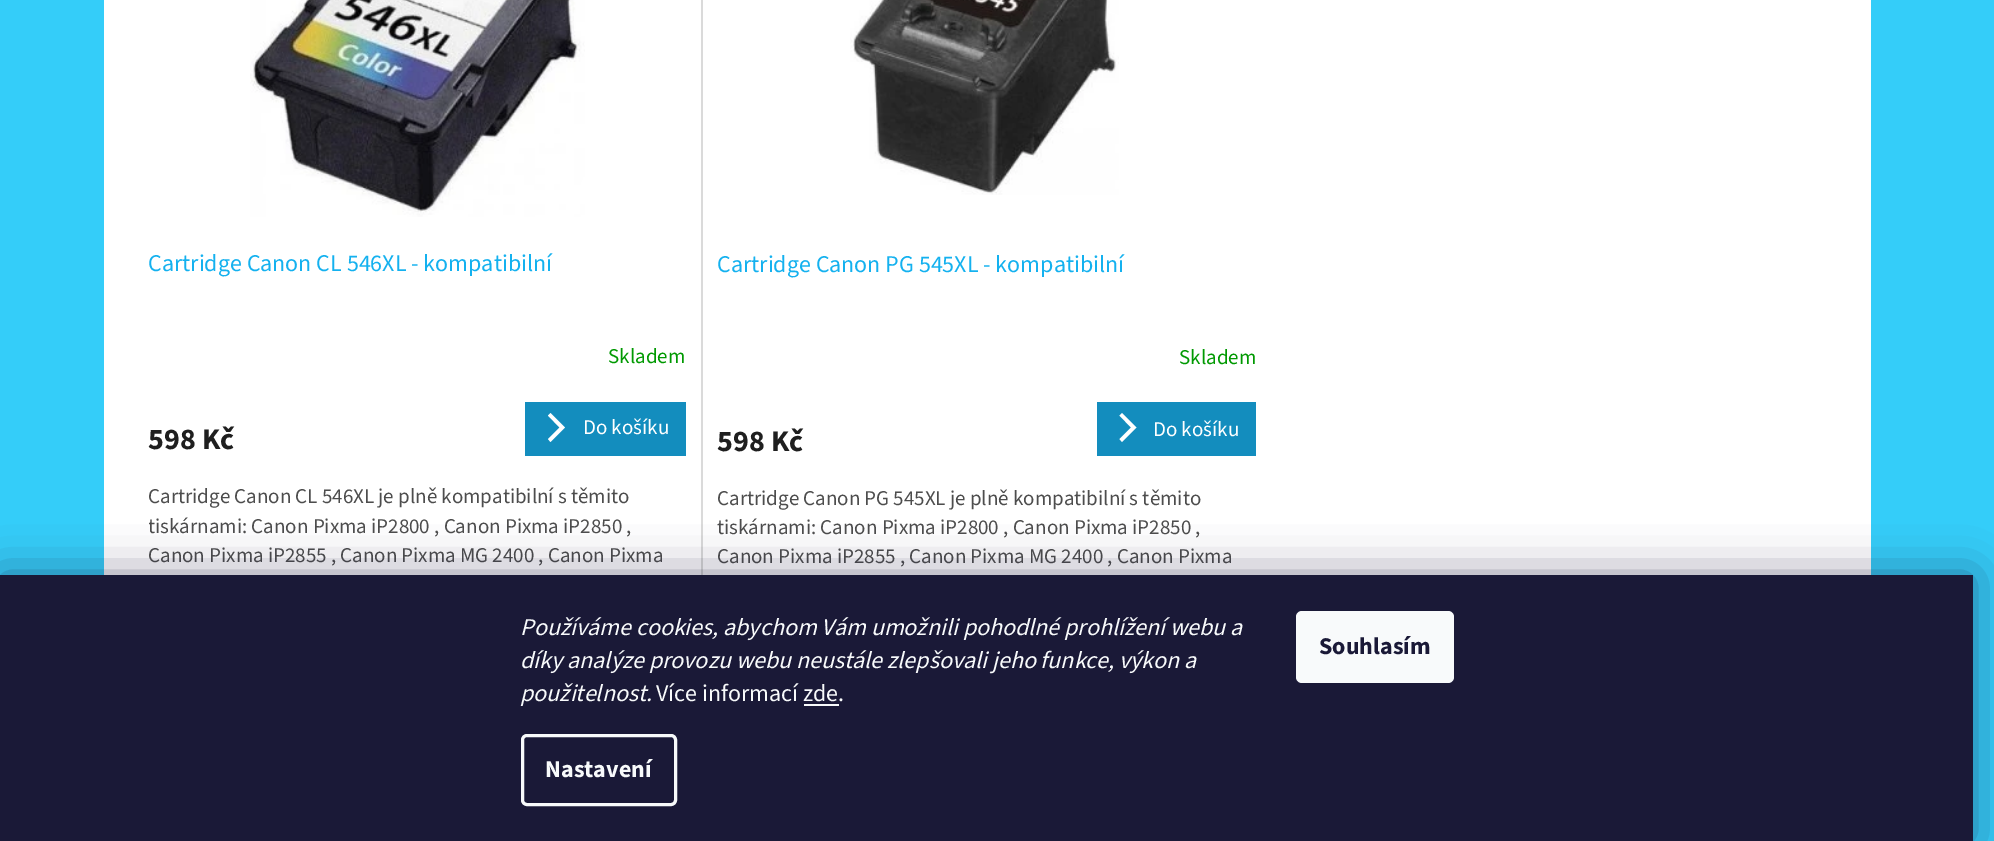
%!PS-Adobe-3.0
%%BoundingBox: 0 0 1994 841
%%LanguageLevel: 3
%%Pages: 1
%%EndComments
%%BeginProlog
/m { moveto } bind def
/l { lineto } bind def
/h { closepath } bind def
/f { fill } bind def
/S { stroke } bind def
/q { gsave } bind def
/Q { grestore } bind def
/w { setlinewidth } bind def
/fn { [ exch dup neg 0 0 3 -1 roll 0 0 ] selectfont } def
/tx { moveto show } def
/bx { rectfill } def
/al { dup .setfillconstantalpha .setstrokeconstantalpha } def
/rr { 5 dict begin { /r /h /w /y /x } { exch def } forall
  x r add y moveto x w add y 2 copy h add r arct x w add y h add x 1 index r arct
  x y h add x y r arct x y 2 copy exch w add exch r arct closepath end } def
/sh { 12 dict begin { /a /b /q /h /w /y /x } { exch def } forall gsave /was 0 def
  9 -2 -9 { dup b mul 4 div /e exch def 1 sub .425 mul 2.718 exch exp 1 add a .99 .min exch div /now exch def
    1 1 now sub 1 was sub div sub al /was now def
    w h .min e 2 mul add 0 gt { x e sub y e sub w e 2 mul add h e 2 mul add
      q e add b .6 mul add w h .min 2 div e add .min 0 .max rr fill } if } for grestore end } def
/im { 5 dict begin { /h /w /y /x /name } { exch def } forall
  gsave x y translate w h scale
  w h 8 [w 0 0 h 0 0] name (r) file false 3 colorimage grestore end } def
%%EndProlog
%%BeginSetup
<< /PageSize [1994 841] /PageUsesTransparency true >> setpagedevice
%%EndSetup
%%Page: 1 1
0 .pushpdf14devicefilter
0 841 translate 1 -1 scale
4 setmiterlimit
0.204 0.804 0.976 setrgbcolor
0 0 1994 841 bx
1 setgray
104 0 1767 575 bx
0.855 setgray
701 0 2 575 bx
(image0.raw) 250 0 335 217 im
/SourceSans3-Regular 24 fn
0.078 0.694 0.937 setrgbcolor
(Cartridge Canon CL 546XL - kompatibilní) 148 271 tx
/SourceSans3-Regular 21 fn
0 0.6 0.004 setrgbcolor
(Skladem) 608 363 tx
/SourceSans3-Bold 30 fn
0.122 setgray
(598 Kč) 148 449 tx
0.075 0.553 0.745 setrgbcolor
525 402 161 54 bx
1 setgray
550.5 442 m 548 439 l 559.5 427.5 l 548 415.5 l 550.5 413 l 565 427.5 l h f
/SourceSans3-Regular 21 fn
(Do košíku) 583 434 tx
0.302 setgray
(Cartridge Canon CL 546XL je plně kompatibilní s těmito) 148 503 tx
q
149 485 537 114 rectclip
(tiskárnami: Canon Pixma iP2800 , Canon Pixma iP2850 ,) 148 533 tx
Q
(Canon Pixma iP2855 , Canon Pixma MG 2400 , Canon Pixma) 148 562 tx
(image1.raw) 850 0 269 195 im
/SourceSans3-Regular 24 fn
0.078 0.694 0.937 setrgbcolor
(Cartridge Canon PG 545XL - kompatibilní) 717 272 tx
/SourceSans3-Regular 21 fn
0 0.6 0.004 setrgbcolor
(Skladem) 1179 364 tx
/SourceSans3-Bold 30 fn
0.122 setgray
(598 Kč) 717 451 tx
0.075 0.553 0.745 setrgbcolor
1097 402 159 54 bx
1 setgray
1122 442 m 1119.5 439 l 1131 427.5 l 1119.5 415.5 l 1122 413 l 1136.5 427.5 l h f
/SourceSans3-Regular 21 fn
(Do košíku) 1153 436 tx
0.302 setgray
(Cartridge Canon PG 545XL je plně kompatibilní s těmito) 717 505 tx
(tiskárnami: Canon Pixma iP2800 , Canon Pixma iP2850 ,) 717 534 tx
(Canon Pixma iP2855 , Canon Pixma MG 2400 , Canon Pixma) 717 563 tx
0.106 0.098 0.224 setrgbcolor
0 575 1973 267 0 22.5 0.5 sh
0.102 0.098 0.216 setrgbcolor
0 575 1973 266 bx
/SourceSans3-Italic 24 fn
0.973 0.98 0.984 setrgbcolor
(Používáme cookies, abychom Vám umožnili pohodlné prohlížení webu a) 520 635 tx
(díky analýze provozu webu neustále zlepšovali jeho funkce, výkon a) 520 668 tx
(použitelnost.) 520 701 tx
/SourceSans3-Regular 24 fn
(Více informací zde.) 656 701 tx
804 704 35 2 bx
3 w
522.5 735.5 153 69 4.5 rr S
/SourceSans3-Bold 24 fn
(Nastavení) 545 777 tx
1296 611 158 72 6 rr f
0.102 0.098 0.216 setrgbcolor
(Souhlasím) 1319 654 tx
.poppdf14devicefilter showpage
%%EOF
